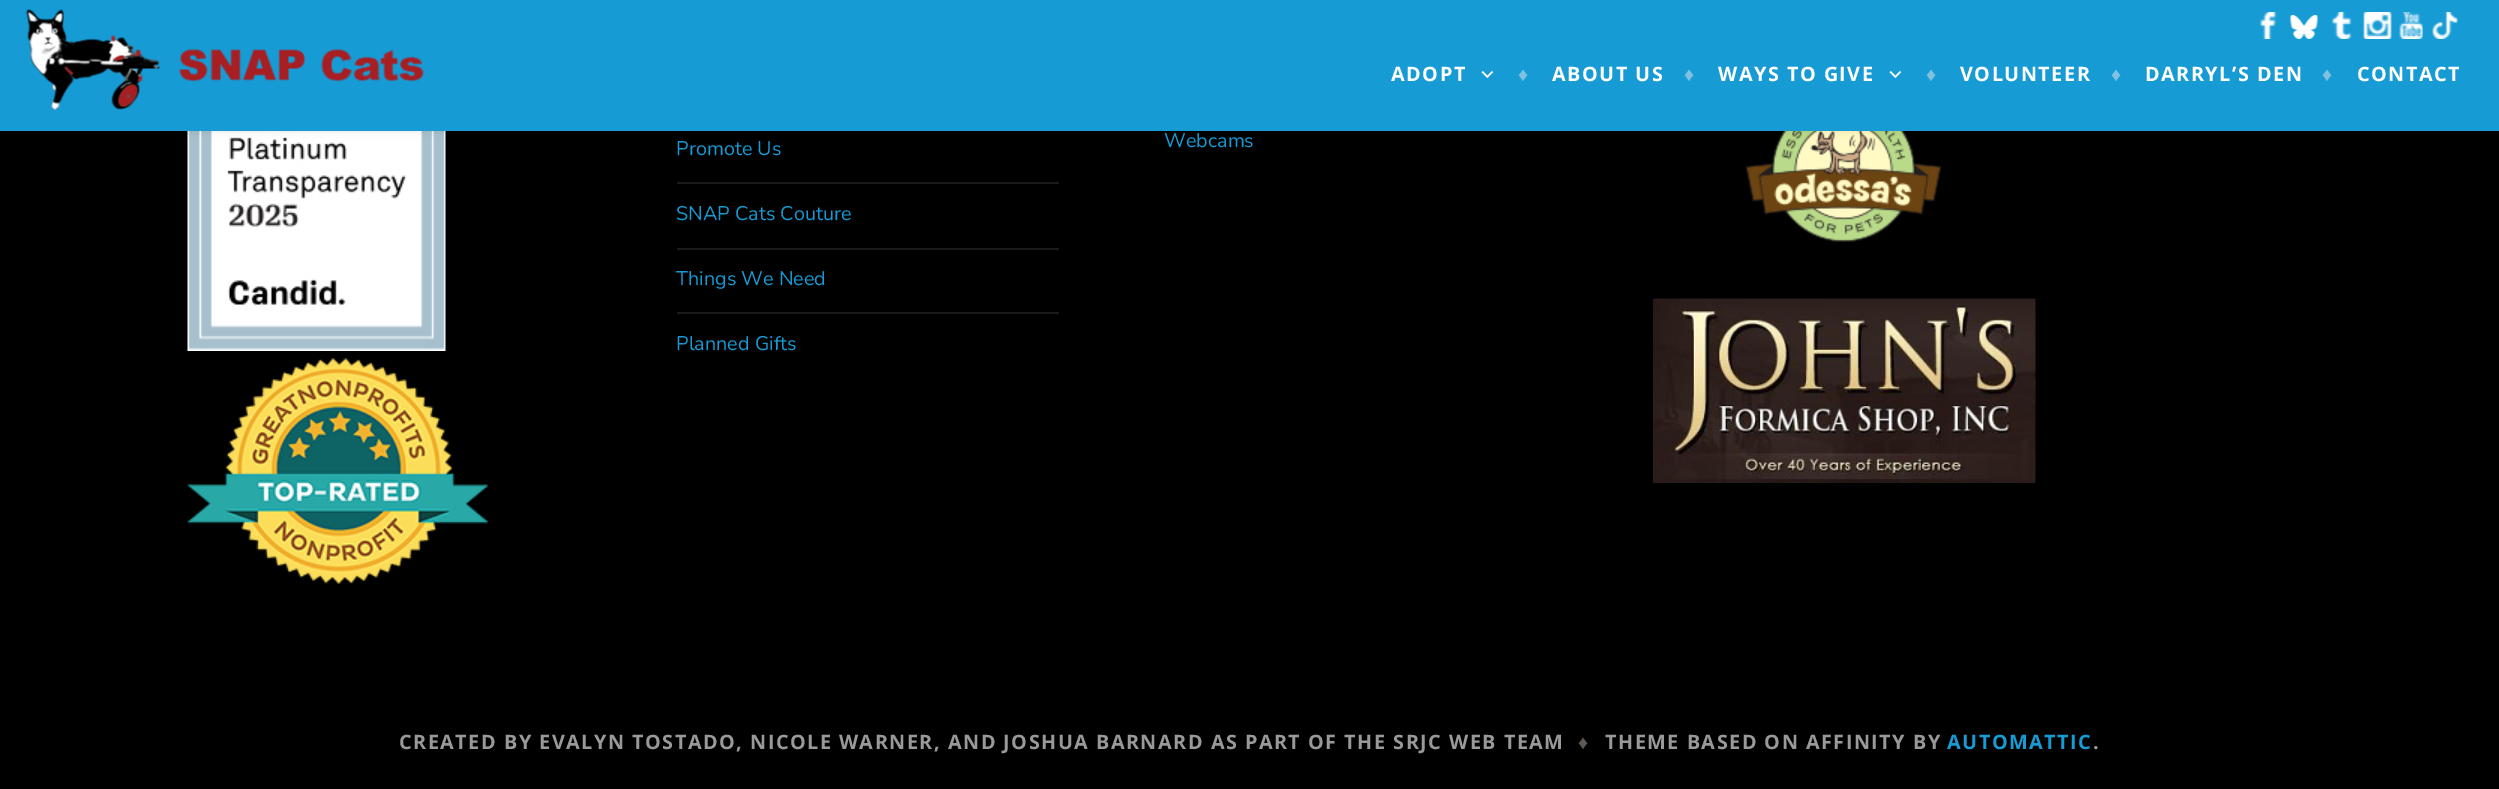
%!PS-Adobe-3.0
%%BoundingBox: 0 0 2499 789
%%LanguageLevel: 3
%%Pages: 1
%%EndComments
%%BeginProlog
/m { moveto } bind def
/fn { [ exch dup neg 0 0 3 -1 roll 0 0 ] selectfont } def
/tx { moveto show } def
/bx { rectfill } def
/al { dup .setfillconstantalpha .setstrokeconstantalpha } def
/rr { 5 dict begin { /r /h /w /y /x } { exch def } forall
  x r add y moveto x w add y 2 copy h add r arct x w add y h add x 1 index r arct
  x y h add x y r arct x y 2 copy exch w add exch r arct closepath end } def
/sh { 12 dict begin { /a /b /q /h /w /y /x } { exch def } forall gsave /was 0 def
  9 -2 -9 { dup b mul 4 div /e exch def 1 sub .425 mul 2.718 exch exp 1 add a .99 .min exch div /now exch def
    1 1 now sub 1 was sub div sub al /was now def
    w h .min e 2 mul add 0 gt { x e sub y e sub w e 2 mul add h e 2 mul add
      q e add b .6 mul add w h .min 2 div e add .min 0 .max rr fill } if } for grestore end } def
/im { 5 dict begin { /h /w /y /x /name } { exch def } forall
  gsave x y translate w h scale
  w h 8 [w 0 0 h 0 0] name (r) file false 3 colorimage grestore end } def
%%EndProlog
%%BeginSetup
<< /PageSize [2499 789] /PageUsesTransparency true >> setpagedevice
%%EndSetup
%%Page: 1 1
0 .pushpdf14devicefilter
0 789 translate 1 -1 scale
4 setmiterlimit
0 setgray
0 0 2499 789 bx
(image8.raw) 187 131 259 220 im
(image10.raw) 1746 131 195 111 im
0 0 2499 131 0 4 0.1 sh
0.086 0.608 0.835 setrgbcolor
0 0 2499 131 bx
(image0.raw) 25 9 399 102 im
(image1.raw) 2259 12 18 27 im
(image2.raw) 2290 15 28 24 im
(image3.raw) 2331 12 21 27 im
(image4.raw) 2363 12 29 27 im
(image5.raw) 2399 12 24 27 im
(image6.raw) 2432 12 26 27 im
/OpenSans-Bold 19.8 fn
1 setgray
1391 81 m 1.5 0 (ADOPT) ashow
(image7.raw) 1481 71 13 7 im
/LiberationSans-Bold 19.8 fn
0.498 0.761 0.878 setrgbcolor
1518 81 m 1.5 0 (♦) ashow
/OpenSans-Bold 19.8 fn
1 setgray
1552 81 m 1.5 0 (ABOUT US) ashow
/LiberationSans-Bold 19.8 fn
0.498 0.761 0.878 setrgbcolor
1684 81 m 1.5 0 (♦) ashow
/OpenSans-Bold 19.8 fn
1 setgray
1718 81 m 1.5 0 (WAYS TO GIVE) ashow
(image7.raw) 1889 71 13 7 im
/LiberationSans-Bold 19.8 fn
0.498 0.761 0.878 setrgbcolor
1926 81 m 1.5 0 (♦) ashow
/OpenSans-Bold 19.8 fn
1 setgray
1960 81 m 1.5 0 (VOLUNTEER) ashow
/LiberationSans-Bold 19.8 fn
0.498 0.761 0.878 setrgbcolor
2111 81 m 1.5 0 (♦) ashow
/OpenSans-Bold 19.8 fn
1 setgray
2145 81 m 1.5 0 (DARRYL’S DEN) ashow
/LiberationSans-Bold 19.8 fn
0.498 0.761 0.878 setrgbcolor
2322 81 m 1.5 0 (♦) ashow
/OpenSans-Bold 19.8 fn
1 setgray
2357 81 m 1.5 0 (CONTACT) ashow
(image9.raw) 187 358 301 226 im
/Nunito-Regular 19.8 fn
0.086 0.608 0.835 setrgbcolor
(Promote Us) 676 155 tx
0.102 setgray
677 182 382 2 bx
0.086 0.608 0.835 setrgbcolor
(SNAP Cats Couture) 676 220 tx
0.102 setgray
677 248 382 2 bx
0.086 0.608 0.835 setrgbcolor
(Things We Need) 676 285 tx
0.102 setgray
677 312 382 2 bx
0.086 0.608 0.835 setrgbcolor
(Planned Gifts) 676 350 tx
(Webcams) 1164 147 tx
(image11.raw) 1653 298 383 185 im
/OpenSans-Bold 19.8 fn
0.6 setgray
399 749 m 1.5 0 (CREATED BY EVALYN TOSTADO, NICOLE WARNER, AND JOSHUA BARNARD AS PART OF THE SRJC WEB TEAM) ashow
/LiberationSans-Bold 19.8 fn
0.369 0.345 0.325 setrgbcolor
1578 749 m 1.5 0 (♦) ashow
/OpenSans-Bold 19.8 fn
0.6 setgray
1605 749 m 1.5 0 (THEME BASED ON AFFINITY BY) ashow
0.086 0.608 0.835 setrgbcolor
1947 749 m 1.5 0 (AUTOMATTIC) ashow
0.6 setgray
2093 749 m 1.5 0 (.) ashow
.poppdf14devicefilter showpage
%%EOF
